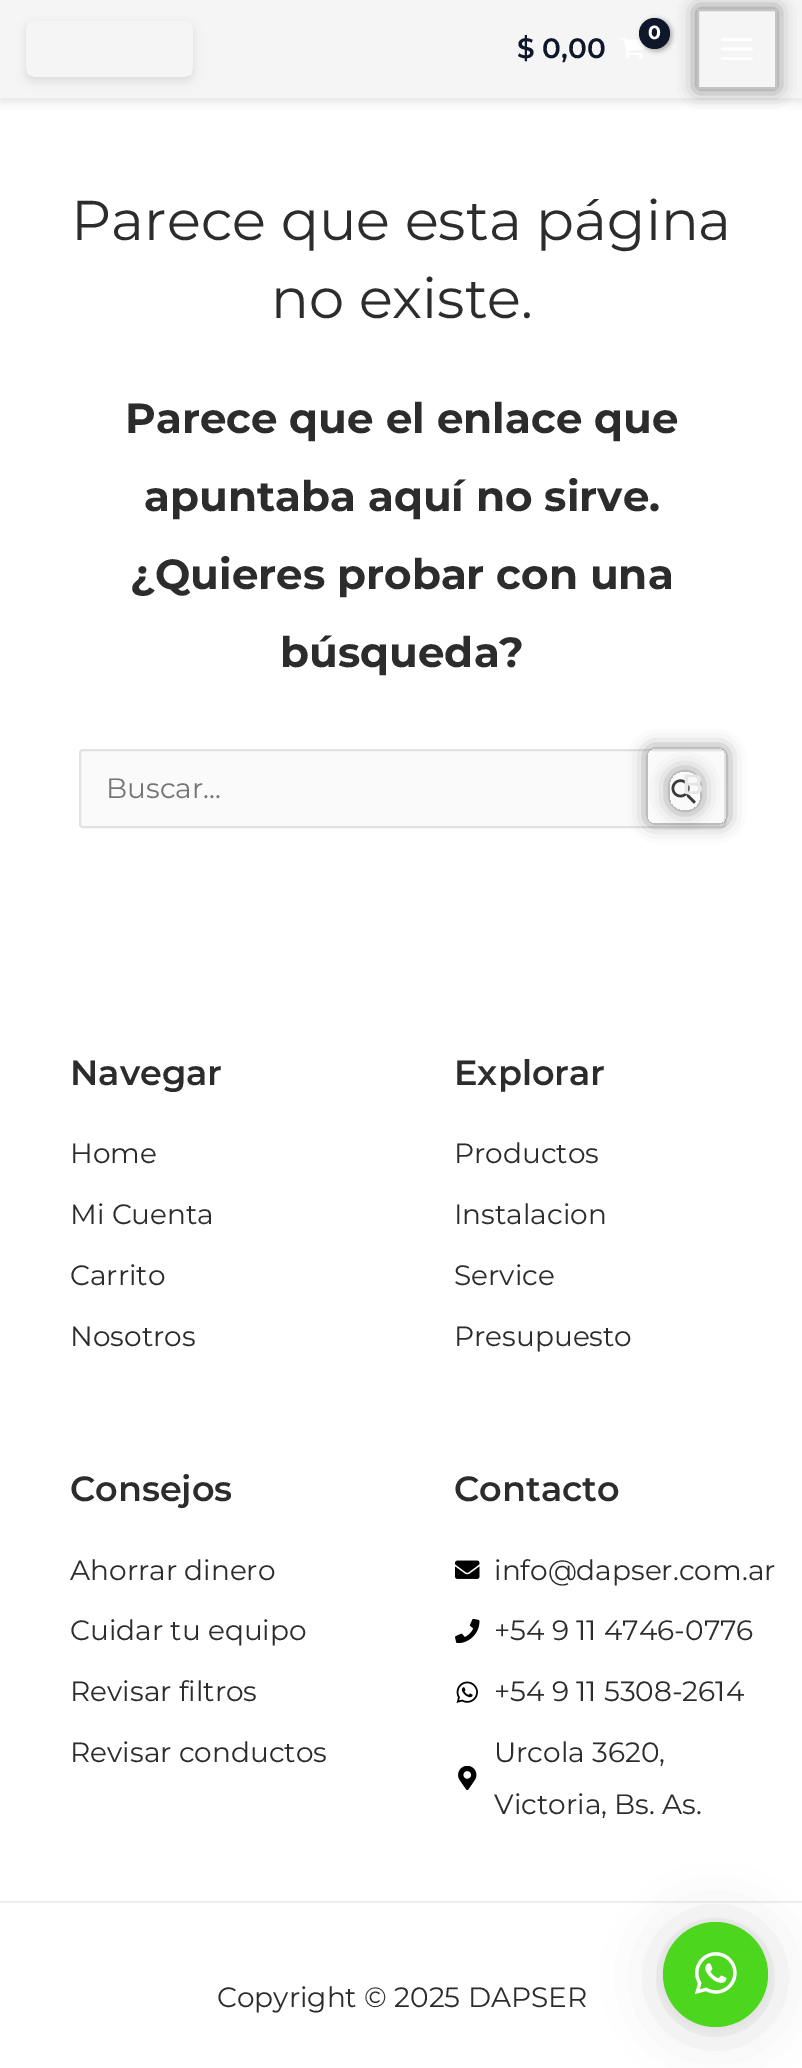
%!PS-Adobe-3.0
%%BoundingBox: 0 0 802 2068
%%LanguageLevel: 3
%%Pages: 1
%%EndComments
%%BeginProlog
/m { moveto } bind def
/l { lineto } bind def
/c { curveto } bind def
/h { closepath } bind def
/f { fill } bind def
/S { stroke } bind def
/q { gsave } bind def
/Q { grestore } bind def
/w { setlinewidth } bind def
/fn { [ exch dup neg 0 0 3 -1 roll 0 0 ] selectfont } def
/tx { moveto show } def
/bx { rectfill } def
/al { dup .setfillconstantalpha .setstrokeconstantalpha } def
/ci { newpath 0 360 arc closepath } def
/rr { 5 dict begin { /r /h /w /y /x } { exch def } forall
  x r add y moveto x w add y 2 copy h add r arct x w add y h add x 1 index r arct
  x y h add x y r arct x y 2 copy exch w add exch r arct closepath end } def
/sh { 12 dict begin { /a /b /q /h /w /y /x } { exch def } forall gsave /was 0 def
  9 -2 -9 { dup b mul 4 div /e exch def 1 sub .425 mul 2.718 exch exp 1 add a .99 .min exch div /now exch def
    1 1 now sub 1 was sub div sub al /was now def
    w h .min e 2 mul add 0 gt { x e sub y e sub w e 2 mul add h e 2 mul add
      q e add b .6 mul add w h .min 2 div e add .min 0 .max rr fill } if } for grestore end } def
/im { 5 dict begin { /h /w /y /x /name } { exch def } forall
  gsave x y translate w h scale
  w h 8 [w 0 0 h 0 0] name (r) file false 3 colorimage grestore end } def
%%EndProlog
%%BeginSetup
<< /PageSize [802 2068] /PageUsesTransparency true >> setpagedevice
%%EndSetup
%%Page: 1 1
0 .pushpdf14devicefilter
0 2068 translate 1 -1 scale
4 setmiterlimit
1 setgray
0 0 802 2068 bx
0 setgray
0 4 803 98 0 5 0.05 sh
0 4 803 98 0 5 0.05 sh
0.961 setgray
0 0 802 98 bx
q
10 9 m 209 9 l 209 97 l 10 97 l h 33 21 m 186 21 l 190 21 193 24 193 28 c 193 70 l 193 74 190 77 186 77 c 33 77 l 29 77 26 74 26 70 c 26 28 l 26 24 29 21 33 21 c h eoclip newpath
0 setgray
26 25 167 56 7 5 0.1 sh
Q
(image0.raw) 620 38 25 21 im
0 setgray
641 19 31 32 15.5 2.5 0.3 sh
q
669 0 m 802 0 l 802 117 l 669 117 l h 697 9 m 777 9 l 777 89 l 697 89 l h eoclip newpath
697 9 80 80 0 9 0.5 sh
Q
0.059 0.09 0.165 setrgbcolor
654.5 33.5 15.5 ci f
/Montserrat-Bold 19 fn
1 setgray
648 39 m -1 0 (0) ashow
/Montserrat-SemiBold 28 fn
0.059 0.09 0.165 setrgbcolor
($ 0,00) 517 58 tx
0.769 setgray
2 w
698 10 78 78 rectstroke
(image1.raw) 721 38 32 22 im
/Montserrat-Regular 56 fn
0.173 setgray
(Parece que esta página) 71 240 tx
(no existe.) 271 318 tx
/Montserrat-Bold 42 fn
(Parece que el enlace que) 125 433 tx
(apuntaba aquí no sirve.) 144 511 tx
(¿Quieres probar con una) 130 589 tx
(búsqueda?) 280 667 tx
0.98 setgray
80 750 645 77 3 rr q f Q
0.886 setgray
S
/Montserrat-Regular 28 fn
0.459 setgray
(Buscar...) 106 798 tx
q
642 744 m 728 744 l 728 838 l 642 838 l h 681 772 m 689 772 l 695 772 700 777 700 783 c 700 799 l 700 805 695 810 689 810 c 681 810 l 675 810 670 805 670 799 c 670 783 l 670 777 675 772 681 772 c h eoclip newpath
0 setgray
670 772 30 38 11 9 0.5 sh
Q
(image2.raw) 671 779 25 25 im
q
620 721 m 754 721 l 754 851 l 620 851 l h 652 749 m 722 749 l 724 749 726 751 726 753 c 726 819 l 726 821 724 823 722 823 c 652 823 l 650 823 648 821 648 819 c 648 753 l 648 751 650 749 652 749 c h eoclip newpath
0 setgray
648 749 78 74 4 9 0.5 sh
Q
/Montserrat-SemiBold 28 fn
0.902 setgray
682 794 m 2 0 (B) ashow
/Montserrat-SemiBold 35 fn
0.173 setgray
(Navegar) 70 1085 tx
/Montserrat-Regular 28 fn
(Home) 70 1163 tx
(Mi Cuenta) 70 1224 tx
(Carrito) 70 1285 tx
(Nosotros) 70 1346 tx
/Montserrat-SemiBold 35 fn
(Explorar) 454 1085 tx
/Montserrat-Regular 28 fn
(Productos) 454 1163 tx
(Instalacion) 454 1224 tx
(Service) 454 1285 tx
(Presupuesto) 454 1346 tx
/Montserrat-SemiBold 35 fn
(Consejos) 70 1501 tx
/Montserrat-Regular 28 fn
(Ahorrar dinero) 70 1580 tx
(Cuidar tu equipo) 70 1640 tx
(Revisar filtros) 70 1701 tx
(Revisar conductos) 70 1762 tx
/Montserrat-SemiBold 35 fn
(Contacto) 454 1501 tx
(image3.raw) 455 1560 25 19 im
/Montserrat-Regular 28 fn
(info@dapser.com.ar) 494 1580 tx
(image4.raw) 455 1619 25 24 im
(+54 9 11 4746-0776) 494 1640 tx
(image5.raw) 456 1681 22 22 im
(+54 9 11 5308-2614) 494 1701 tx
(image6.raw) 458 1766 19 24 im
(Urcola 3620,) 494 1762 tx
(Victoria, Bs. As.) 494 1814 tx
0.933 setgray
0 1901 802 2 bx
0.173 setgray
(Copyright © 2025 DAPSER) 217 2007 tx
0 setgray
663 1925 105 105 52.5 28 0.16 sh
663 1923 105 105 52.5 5 0.06 sh
0.298 0.839 0.114 setrgbcolor
715.5 1974.5 52.5 ci f
(image7.raw) 695 1952 42 42 im
.poppdf14devicefilter showpage
%%EOF
